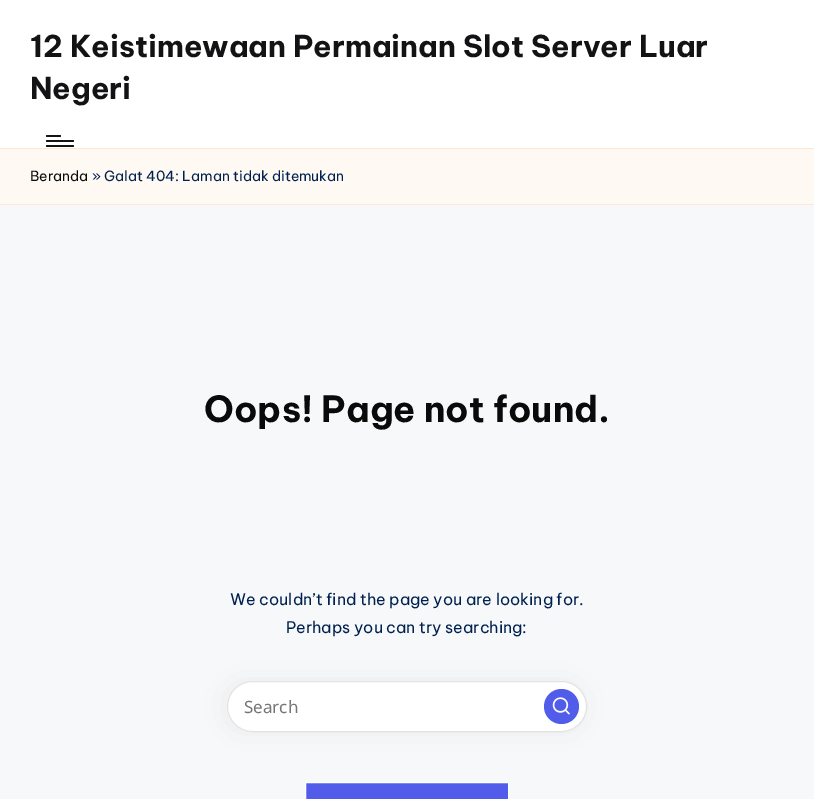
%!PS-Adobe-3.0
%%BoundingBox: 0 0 814 799
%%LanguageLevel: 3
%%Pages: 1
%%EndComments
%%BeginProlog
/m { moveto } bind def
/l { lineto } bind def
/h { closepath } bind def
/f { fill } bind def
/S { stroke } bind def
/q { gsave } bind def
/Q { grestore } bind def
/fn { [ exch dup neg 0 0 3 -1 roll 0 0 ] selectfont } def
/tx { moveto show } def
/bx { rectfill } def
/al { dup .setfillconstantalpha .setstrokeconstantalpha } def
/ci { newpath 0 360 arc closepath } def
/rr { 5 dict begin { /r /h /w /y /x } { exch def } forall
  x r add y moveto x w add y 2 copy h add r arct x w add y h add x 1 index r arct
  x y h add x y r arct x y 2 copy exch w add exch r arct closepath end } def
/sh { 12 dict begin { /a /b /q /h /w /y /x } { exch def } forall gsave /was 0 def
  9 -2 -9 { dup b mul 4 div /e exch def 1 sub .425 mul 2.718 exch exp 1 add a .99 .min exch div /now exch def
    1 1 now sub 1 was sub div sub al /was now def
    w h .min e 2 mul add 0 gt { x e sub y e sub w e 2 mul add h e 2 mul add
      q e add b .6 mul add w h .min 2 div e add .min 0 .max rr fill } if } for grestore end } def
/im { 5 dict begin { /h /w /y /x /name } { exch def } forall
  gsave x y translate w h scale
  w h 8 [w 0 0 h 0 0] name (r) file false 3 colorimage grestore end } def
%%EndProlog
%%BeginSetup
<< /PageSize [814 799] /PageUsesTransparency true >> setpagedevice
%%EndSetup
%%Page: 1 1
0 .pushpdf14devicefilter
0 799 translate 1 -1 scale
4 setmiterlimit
0.969 0.973 0.976 setrgbcolor
0 0 814 799 bx
1 setgray
0 0 814 148 bx
/BeVietnamPro-Bold 30 fn
0.075 0.075 0.082 setrgbcolor
(12 Keistimewaan Permainan Slot Server Luar) 30 57 tx
(Negeri) 30 99 tx
46 140 28 2 1 rr f
46 135 15 2 1 rr f
46 145 28 2 1 rr f
1 0.976 0.953 setrgbcolor
0 149 814 55 bx
1 0.906 0.824 setrgbcolor
0 148 814 1 bx
0 204 814 1 bx
/BeVietnamPro-Regular 14 fn
0.039 setgray
(Beranda) 30 181 tx
0 0.125 0.314 setrgbcolor
(» Galat 404: Laman tidak ditemukan) 92 181 tx
/BeVietnamPro-Bold 36 fn
0.039 setgray
(Oops! Page not found.) 204 422 tx
/BeVietnamPro-Regular 16 fn
0 0.125 0.314 setrgbcolor
(We couldn’t find the page you are looking for.) 230 605 tx
(Perhaps you can try searching:) 286 633 tx
0 setgray
240 697 328 19 9.5 16 0.15 sh
1 setgray
227 681 360 51 25.5 rr f
0.4 al
0.725 setgray
227.5 681.5 359 50 25 rr S
/NotoSans-Regular 17 fn
1 al
0.459 setgray
(Search) 244 713 tx
0.322 0.361 0.922 setrgbcolor
561.5 706.5 17.5 ci f
(image0.raw) 552 697 18 18 im
305.5 782.5 m 508.5 782.5 l 508.5 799.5 l 305.5 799.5 l h q f Q
1 setgray
S
.poppdf14devicefilter showpage
%%EOF
